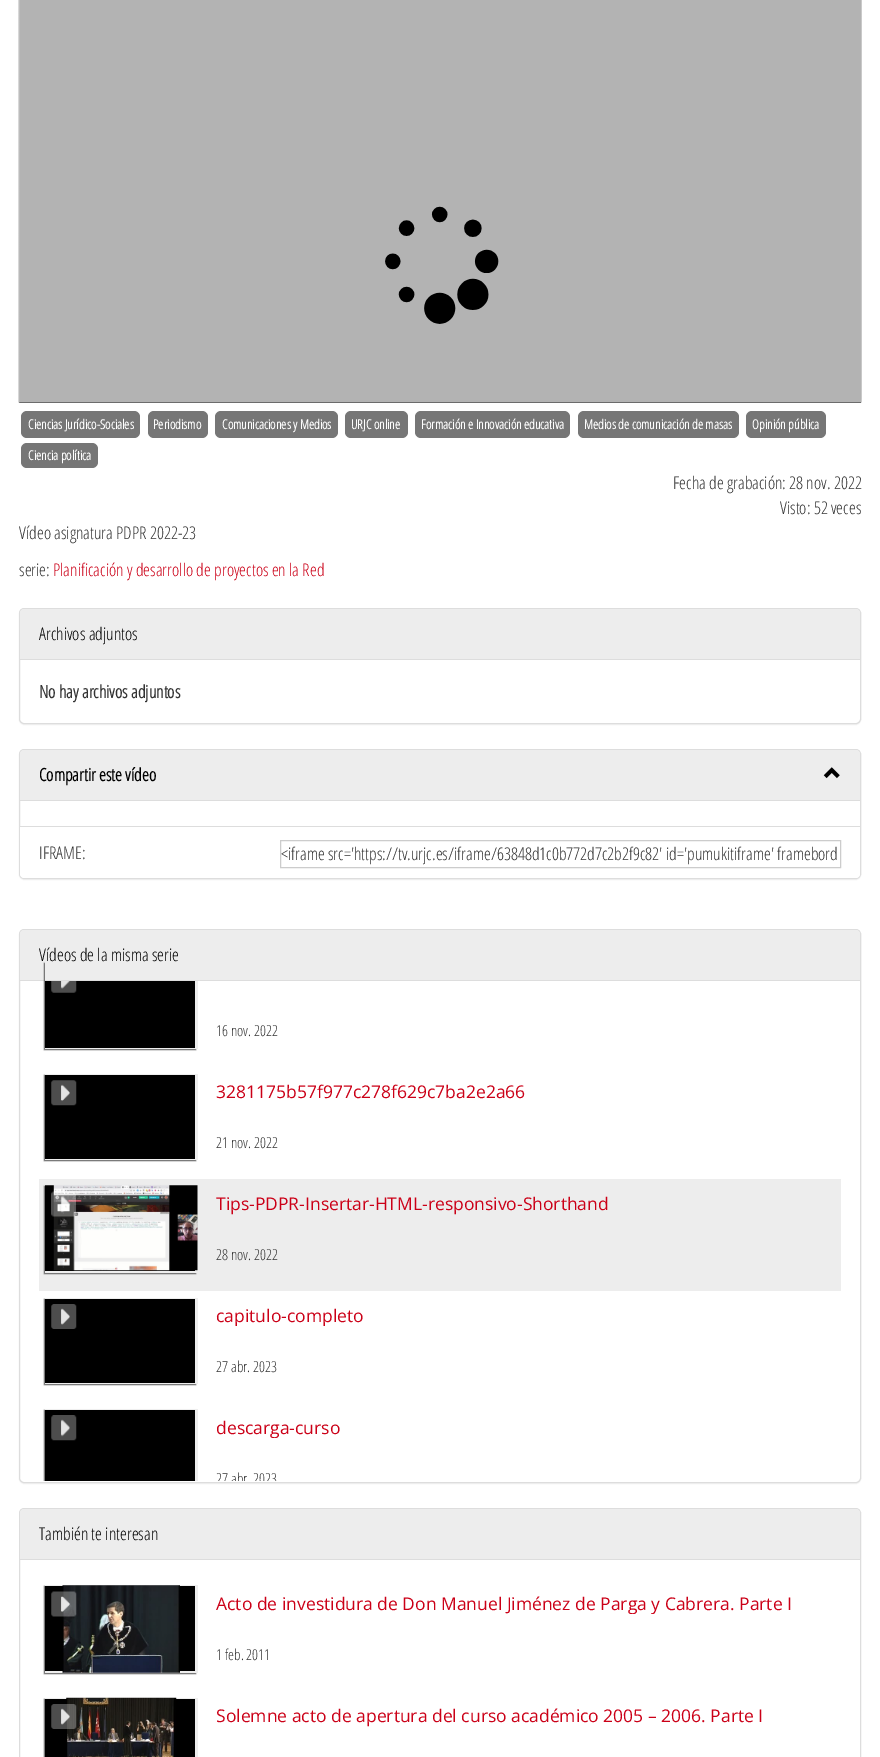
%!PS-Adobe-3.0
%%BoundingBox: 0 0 880 1757
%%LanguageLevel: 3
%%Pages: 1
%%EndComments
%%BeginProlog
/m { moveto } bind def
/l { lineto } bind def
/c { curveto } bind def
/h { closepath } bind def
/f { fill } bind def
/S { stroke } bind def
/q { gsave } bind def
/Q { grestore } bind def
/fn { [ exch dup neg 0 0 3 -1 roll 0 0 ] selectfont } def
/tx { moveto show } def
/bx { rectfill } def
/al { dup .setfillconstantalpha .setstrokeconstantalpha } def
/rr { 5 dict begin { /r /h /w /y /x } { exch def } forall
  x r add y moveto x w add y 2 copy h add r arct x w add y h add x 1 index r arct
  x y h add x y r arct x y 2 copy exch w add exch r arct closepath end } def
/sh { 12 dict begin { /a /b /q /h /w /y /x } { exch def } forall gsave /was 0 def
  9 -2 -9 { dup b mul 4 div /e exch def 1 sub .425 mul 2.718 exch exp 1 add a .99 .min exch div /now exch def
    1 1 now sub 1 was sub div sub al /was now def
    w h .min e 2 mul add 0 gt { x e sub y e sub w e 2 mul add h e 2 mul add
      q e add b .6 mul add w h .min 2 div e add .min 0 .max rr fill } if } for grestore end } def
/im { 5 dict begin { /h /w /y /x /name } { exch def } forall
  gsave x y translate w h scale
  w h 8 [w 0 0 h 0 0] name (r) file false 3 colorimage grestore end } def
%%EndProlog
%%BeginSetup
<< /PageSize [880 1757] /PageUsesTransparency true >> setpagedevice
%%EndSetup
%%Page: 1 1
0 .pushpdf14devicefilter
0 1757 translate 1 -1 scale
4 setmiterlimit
1 setgray
0 0 880 1757 bx
(image0.raw) 18 0 844 403 im
0.463 setgray
21 411 119 27 6 rr f
/OpenSans-Bold 13.1 fn
1 setgray
(Ciencias Jurídico-Sociales) 28 429 tx
0.463 setgray
148 411 60 27 6 rr f
1 setgray
(Periodismo) 153 429 tx
0.463 setgray
215 411 123 27 6 rr f
1 setgray
(Comunicaciones y Medios) 222 429 tx
0.463 setgray
345 411 63 27 6 rr f
1 setgray
(URJC online) 351 429 tx
0.463 setgray
415 411 155 27 6 rr f
1 setgray
(Formación e Innovación educativa) 421 429 tx
0.463 setgray
578 411 161 27 6 rr f
1 setgray
(Medios de comunicación de masas) 584 429 tx
0.463 setgray
746 411 80 27 6 rr f
1 setgray
(Opinión pública) 752 429 tx
0.463 setgray
21 443 77 25 6 rr f
1 setgray
(Ciencia política) 28 460 tx
/OpenSans-Light 17.5 fn
0.2 setgray
(Fecha de grabación: 28 nov. 2022) 673 489 tx
(Visto: 52 veces) 780 514 tx
(Vídeo asignatura PDPR 2022-23) 19 539 tx
(serie:) 19 576 tx
0.796 0 0.09 setrgbcolor
(Planificación y desarrollo de proyectos en la Red) 53 576 tx
0 setgray
19 609 842 116 5 0.5 0.05 sh
1 setgray
19.5 608.5 841 115 4.5 rr q f Q
0.867 setgray
S
0.929 setgray
24 609 m 856 609 l 858 609 860 611 860 613 c 860 660 l 20 660 l 20 613 l 20 611 22 609 24 609 c h f
0.867 setgray
20 659 840 1 bx
0 setgray
(Archivos adjuntos) 39 640 tx
/OpenSans-Bold 17.5 fn
0.2 setgray
(No hay archivos adjuntos) 39 698 tx
0 setgray
19 750 842 130 5 0.5 0.05 sh
1 setgray
19.5 749.5 841 129 4.5 rr q f Q
0.867 setgray
S
0.929 setgray
24 750 m 856 750 l 858 750 860 752 860 754 c 860 801 l 20 801 l 20 754 l 20 752 22 750 24 750 c h f
0.867 setgray
20 800 840 1 bx
0 setgray
(Compartir este vídeo) 39 781 tx
(image1.raw) 823 767 17 12 im
1 setgray
20 826 m 860 826 l 860 874 l 860 876 858 878 856 878 c 24 878 l 22 878 20 876 20 874 c h f
0.867 setgray
20 826 840 1 bx
/OpenSans-Light 17.5 fn
0.2 setgray
(IFRAME:) 39 859 tx
0.8 setgray
280.5 840.5 560 27 rectstroke
0.2 setgray
(<iframe src='https://tv.urjc.es/iframe/63848d1c0b772d7c2b2f9c82' id='pumukitiframe' framebord) 281 860 tx
0 setgray
19 930 842 554 5 0.5 0.05 sh
1 setgray
19.5 929.5 841 553 4.5 rr q f Q
0.867 setgray
S
0.929 setgray
24 930 m 856 930 l 858 930 860 932 860 934 c 860 981 l 20 981 l 20 934 l 20 932 22 930 24 930 c h f
0.867 setgray
20 980 840 1 bx
0 setgray
(Vídeos de la misma serie) 39 961 tx
q
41 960 m 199 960 l 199 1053 l 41 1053 l h 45 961 m 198 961 l 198 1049 l 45 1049 l h eoclip newpath
0.4 setgray
44 963 152 87 0 0.5 1 sh
Q
0.933 setgray
45 981 153 68 bx
0 setgray
45 981 150 67 bx
(image2.raw) 51 981 26 12 im
/OpenSans-Light 15 fn
0.2 setgray
(16 nov. 2022) 216 1036 tx
0.4 setgray
44 1075 152 86 0 0.5 1 sh
0.933 setgray
45 1074 153 86 bx
0 setgray
45 1075 150 84 bx
(image3.raw) 51 1080 26 26 im
/OpenSans-Regular 17.5 fn
0.796 0 0.09 setrgbcolor
(3281175b57f977c278f629c7ba2e2a66) 216 1098 tx
/OpenSans-Light 15 fn
0.2 setgray
(21 nov. 2022) 216 1148 tx
0.929 setgray
39 1179 802 112 bx
0.4 setgray
44 1186 152 88 0 0.5 1 sh
0.933 setgray
45 1185 152 88 bx
0 setgray
45 1270 150 1 bx
(image4.raw) 45 1185 153 86 im
(image5.raw) 51 1191 25 26 im
/OpenSans-Regular 17.5 fn
0.796 0 0.09 setrgbcolor
(Tips-PDPR-Insertar-HTML-responsivo-Shorthand) 216 1210 tx
/OpenSans-Light 15 fn
0.2 setgray
(28 nov. 2022) 216 1260 tx
0.4 setgray
44 1299 152 86 0 0.5 1 sh
0.933 setgray
45 1298 153 86 bx
0 setgray
45 1299 150 84 bx
(image6.raw) 51 1304 26 25 im
q
216 1304 619 22 rectclip
/OpenSans-Regular 17.5 fn
0.796 0 0.09 setrgbcolor
(capitulo-completo) 216 1322 tx
Q
0.2 setgray
(27 abr. 2023) 216 1372 tx
q
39 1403 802 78 rectclip
0.4 setgray
44 1410 152 88 0 0.5 1 sh
Q
0.933 setgray
45 1409 153 72 bx
0 setgray
45 1410 150 71 bx
(image7.raw) 51 1415 26 26 im
q
216 1415 619 23 rectclip
/OpenSans-Regular 17.5 fn
0.796 0 0.09 setrgbcolor
(descarga-curso) 216 1434 tx
Q
q
198 1409 637 72 rectclip
0.2 setgray
(27 abr. 2023) 216 1484 tx
Q
0.867 setgray
19.5 1508.5 841 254 4.5 rr S
0.929 setgray
24 1509 m 856 1509 l 858 1509 860 1511 860 1513 c 860 1560 l 20 1560 l 20 1513 l 20 1511 22 1509 24 1509 c h f
0.867 setgray
20 1559 840 1 bx
/OpenSans-Light 17.5 fn
0 setgray
(También te interesan) 39 1540 tx
0.4 setgray
44 1586 152 88 0 0.5 1 sh
0.933 setgray
45 1585 153 88 bx
0 setgray
45 1586 150 85 bx
(image8.raw) 62 1585 118 88 im
(image9.raw) 51 1591 26 26 im
q
216 1591 619 23 rectclip
/OpenSans-Regular 17.5 fn
0.796 0 0.09 setrgbcolor
(Acto de investidura de Don Manuel Jiménez de Parga y Cabrera. Parte I) 216 1610 tx
Q
/OpenSans-Light 15 fn
0.2 setgray
(1 feb. 2011) 216 1660 tx
0.4 setgray
44 1699 152 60 0 0.5 1 sh
0.933 setgray
45 1698 153 59 bx
0 setgray
45 1699 150 58 bx
(image10.raw) 66 1697 111 60 im
(image11.raw) 51 1704 26 25 im
/OpenSans-Regular 17.5 fn
0.796 0 0.09 setrgbcolor
(Solemne acto de apertura del curso académico 2005 – 2006. Parte I) 216 1722 tx
.poppdf14devicefilter showpage
%%EOF
